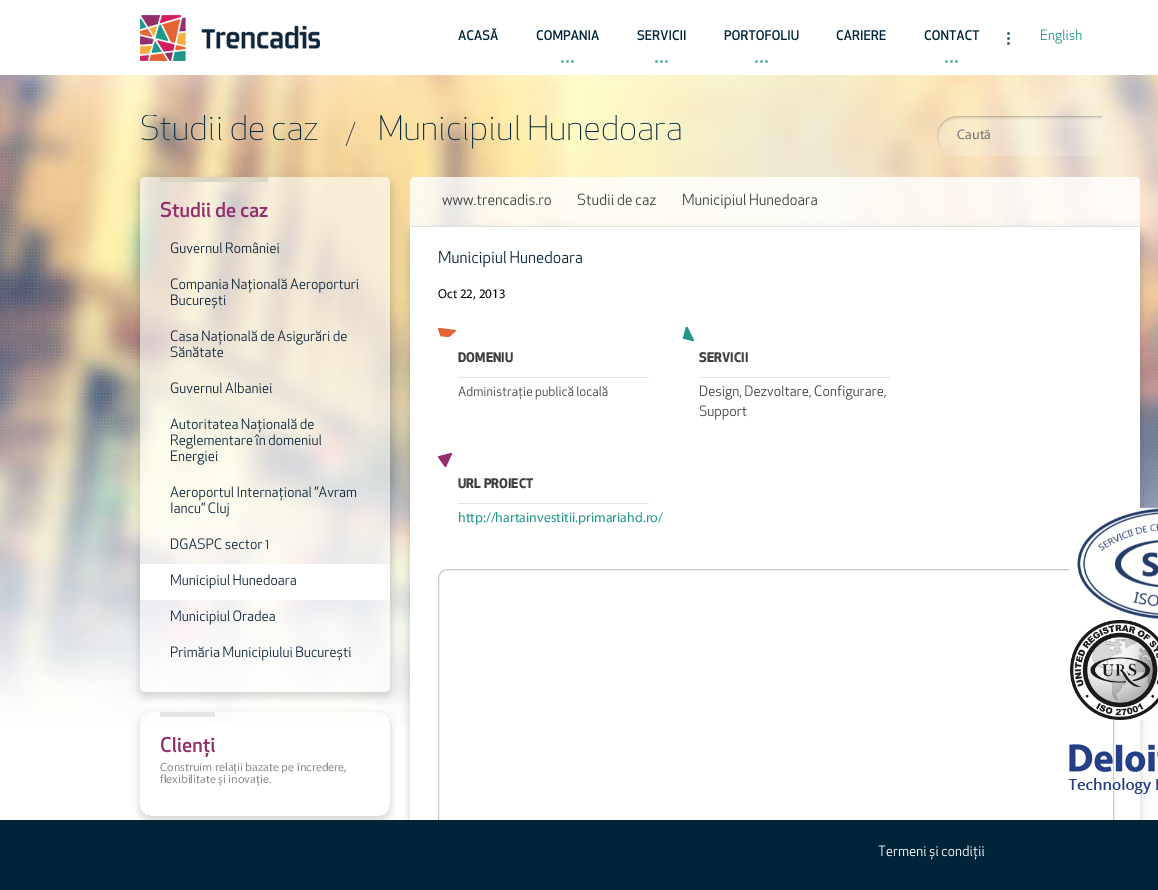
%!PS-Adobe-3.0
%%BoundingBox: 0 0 1158 890
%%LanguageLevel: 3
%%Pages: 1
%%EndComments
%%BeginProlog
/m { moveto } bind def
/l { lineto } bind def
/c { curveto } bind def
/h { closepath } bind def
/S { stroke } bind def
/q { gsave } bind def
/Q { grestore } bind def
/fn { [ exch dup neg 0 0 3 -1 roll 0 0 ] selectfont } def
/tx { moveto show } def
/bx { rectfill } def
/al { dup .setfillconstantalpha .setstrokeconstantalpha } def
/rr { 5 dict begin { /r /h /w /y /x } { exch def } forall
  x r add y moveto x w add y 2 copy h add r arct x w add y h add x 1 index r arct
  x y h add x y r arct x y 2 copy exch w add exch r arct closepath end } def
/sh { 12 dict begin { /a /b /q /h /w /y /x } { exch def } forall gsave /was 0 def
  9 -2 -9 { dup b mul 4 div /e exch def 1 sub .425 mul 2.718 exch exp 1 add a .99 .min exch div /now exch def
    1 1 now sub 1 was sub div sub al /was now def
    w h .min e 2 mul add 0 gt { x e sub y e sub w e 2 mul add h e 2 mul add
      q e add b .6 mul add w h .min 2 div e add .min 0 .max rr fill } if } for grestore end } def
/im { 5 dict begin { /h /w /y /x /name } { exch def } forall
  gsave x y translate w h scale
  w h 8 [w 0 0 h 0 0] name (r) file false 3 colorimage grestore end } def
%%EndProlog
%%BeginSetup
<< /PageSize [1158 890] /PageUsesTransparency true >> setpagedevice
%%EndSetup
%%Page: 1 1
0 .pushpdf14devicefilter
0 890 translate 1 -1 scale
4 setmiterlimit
1 setgray
0 0 1158 890 bx
(image0.raw) 0 75 1158 650 im
(image1.raw) 140 15 180 46 im
(image2.raw) 1007 32 3 13 im
(image3.raw) 458 28 40 13 im
(image4.raw) 561 60 13 3 im
(image5.raw) 536 30 63 11 im
(image4.raw) 655 60 13 3 im
(image6.raw) 637 30 49 11 im
(image4.raw) 755 60 13 3 im
(image7.raw) 724 30 75 11 im
(image8.raw) 836 30 50 11 im
(image4.raw) 945 60 13 3 im
(image9.raw) 924 30 56 11 im
(image10.raw) 1041 29 41 15 im
(image11.raw) 345 121 11 26 im
(image12.raw) 141 115 177 26 im
(image13.raw) 380 115 301 34 im
(image14.raw) 937 116 165 40 im
/Myriad-Regular 14 fn
0.459 setgray
(Caută) 957 139 tx
(image15.raw) 410 177 730 49 im
0.902 setgray
410 226 730 1 bx
(image16.raw) 442 193 109 13 im
(image17.raw) 577 193 79 13 im
(image18.raw) 683 193 134 16 im
0 setgray
409 230 732 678 6 4 0.15 sh
1 setgray
410 227 730 593 bx
(image19.raw) 439 251 143 16 im
/Myriad-Regular 13 fn
0 setgray
(Oct 22, 2013) 438 298 tx
(image20.raw) 438 328 18 9 im
0.898 setgray
458 377 191 1 bx
/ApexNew-Bold 13 fn
0.251 0.251 0.255 setrgbcolor
(DOMENIU) 458 362 tx
(image21.raw) 458 386 150 14 im
(image22.raw) 682 327 13 15 im
0.898 setgray
699 377 191 1 bx
0.251 0.251 0.255 setrgbcolor
(SERVICII) 699 362 tx
(image23.raw) 700 385 186 15 im
(image24.raw) 699 405 48 15 im
(image25.raw) 438 453 14 14 im
0.898 setgray
458 503 191 1 bx
0.251 0.251 0.255 setrgbcolor
(URL PROIECT) 458 488 tx
/Myriad-Regular 14 fn
0.129 0.588 0.541 setrgbcolor
(http://hartainvestitii.primariahd.ro/) 458 522 tx
0.784 setgray
438.5 569.5 675 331 9.5 rr S
q
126 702 m 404 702 l 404 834 l 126 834 l h 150 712 m 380 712 l 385.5 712 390 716.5 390 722 c 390 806 l 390 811.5 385.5 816 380 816 c 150 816 l 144.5 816 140 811.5 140 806 c 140 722 l 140 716.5 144.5 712 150 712 c h eoclip newpath
0 setgray
139 715 252 106 11 4 0.15 sh
Q
0 0.145 0.224 setrgbcolor
0 820 1158 70 bx
(image26.raw) 1070 507 88 113 im
(image27.raw) 1070 620 88 100 im
(image28.raw) 1068 744 90 50 im
(image29.raw) 878 845 107 15 im
q
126 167 m 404 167 l 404 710 l 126 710 l h 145 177 m 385 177 l 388 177 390 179 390 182 c 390 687 l 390 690 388 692 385 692 c 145 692 l 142 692 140 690 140 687 c 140 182 l 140 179 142 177 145 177 c h eoclip newpath
0 setgray
139 180 252 517 6 4 0.15 sh
Q
(image30.raw) 140 177 250 515 im
0.863 0.831 0.773 setrgbcolor
160 177 108 5 bx
(image31.raw) 160 201 108 17 im
(image32.raw) 170 242 110 12 im
(image33.raw) 170 278 189 15 im
(image34.raw) 171 294 55 15 im
(image35.raw) 170 330 177 15 im
(image36.raw) 170 346 53 12 im
(image37.raw) 170 382 102 12 im
(image38.raw) 170 418 144 15 im
(image39.raw) 171 434 151 15 im
(image40.raw) 171 450 47 15 im
(image41.raw) 170 486 187 15 im
(image42.raw) 171 502 58 15 im
(image43.raw) 171 538 97 12 im
1 setgray
140 564 250 36 bx
(image44.raw) 171 574 125 15 im
(image45.raw) 171 610 104 15 im
(image46.raw) 171 646 180 15 im
0.898 setgray
160 712 55 5 bx
(image47.raw) 161 736 54 21 im
/Myriad-Regular 12 fn
0.553 setgray
(Construim relații bazate pe încredere,) 160 771 tx
(flexibilitate și inovație.) 160 783 tx
.poppdf14devicefilter showpage
%%EOF
